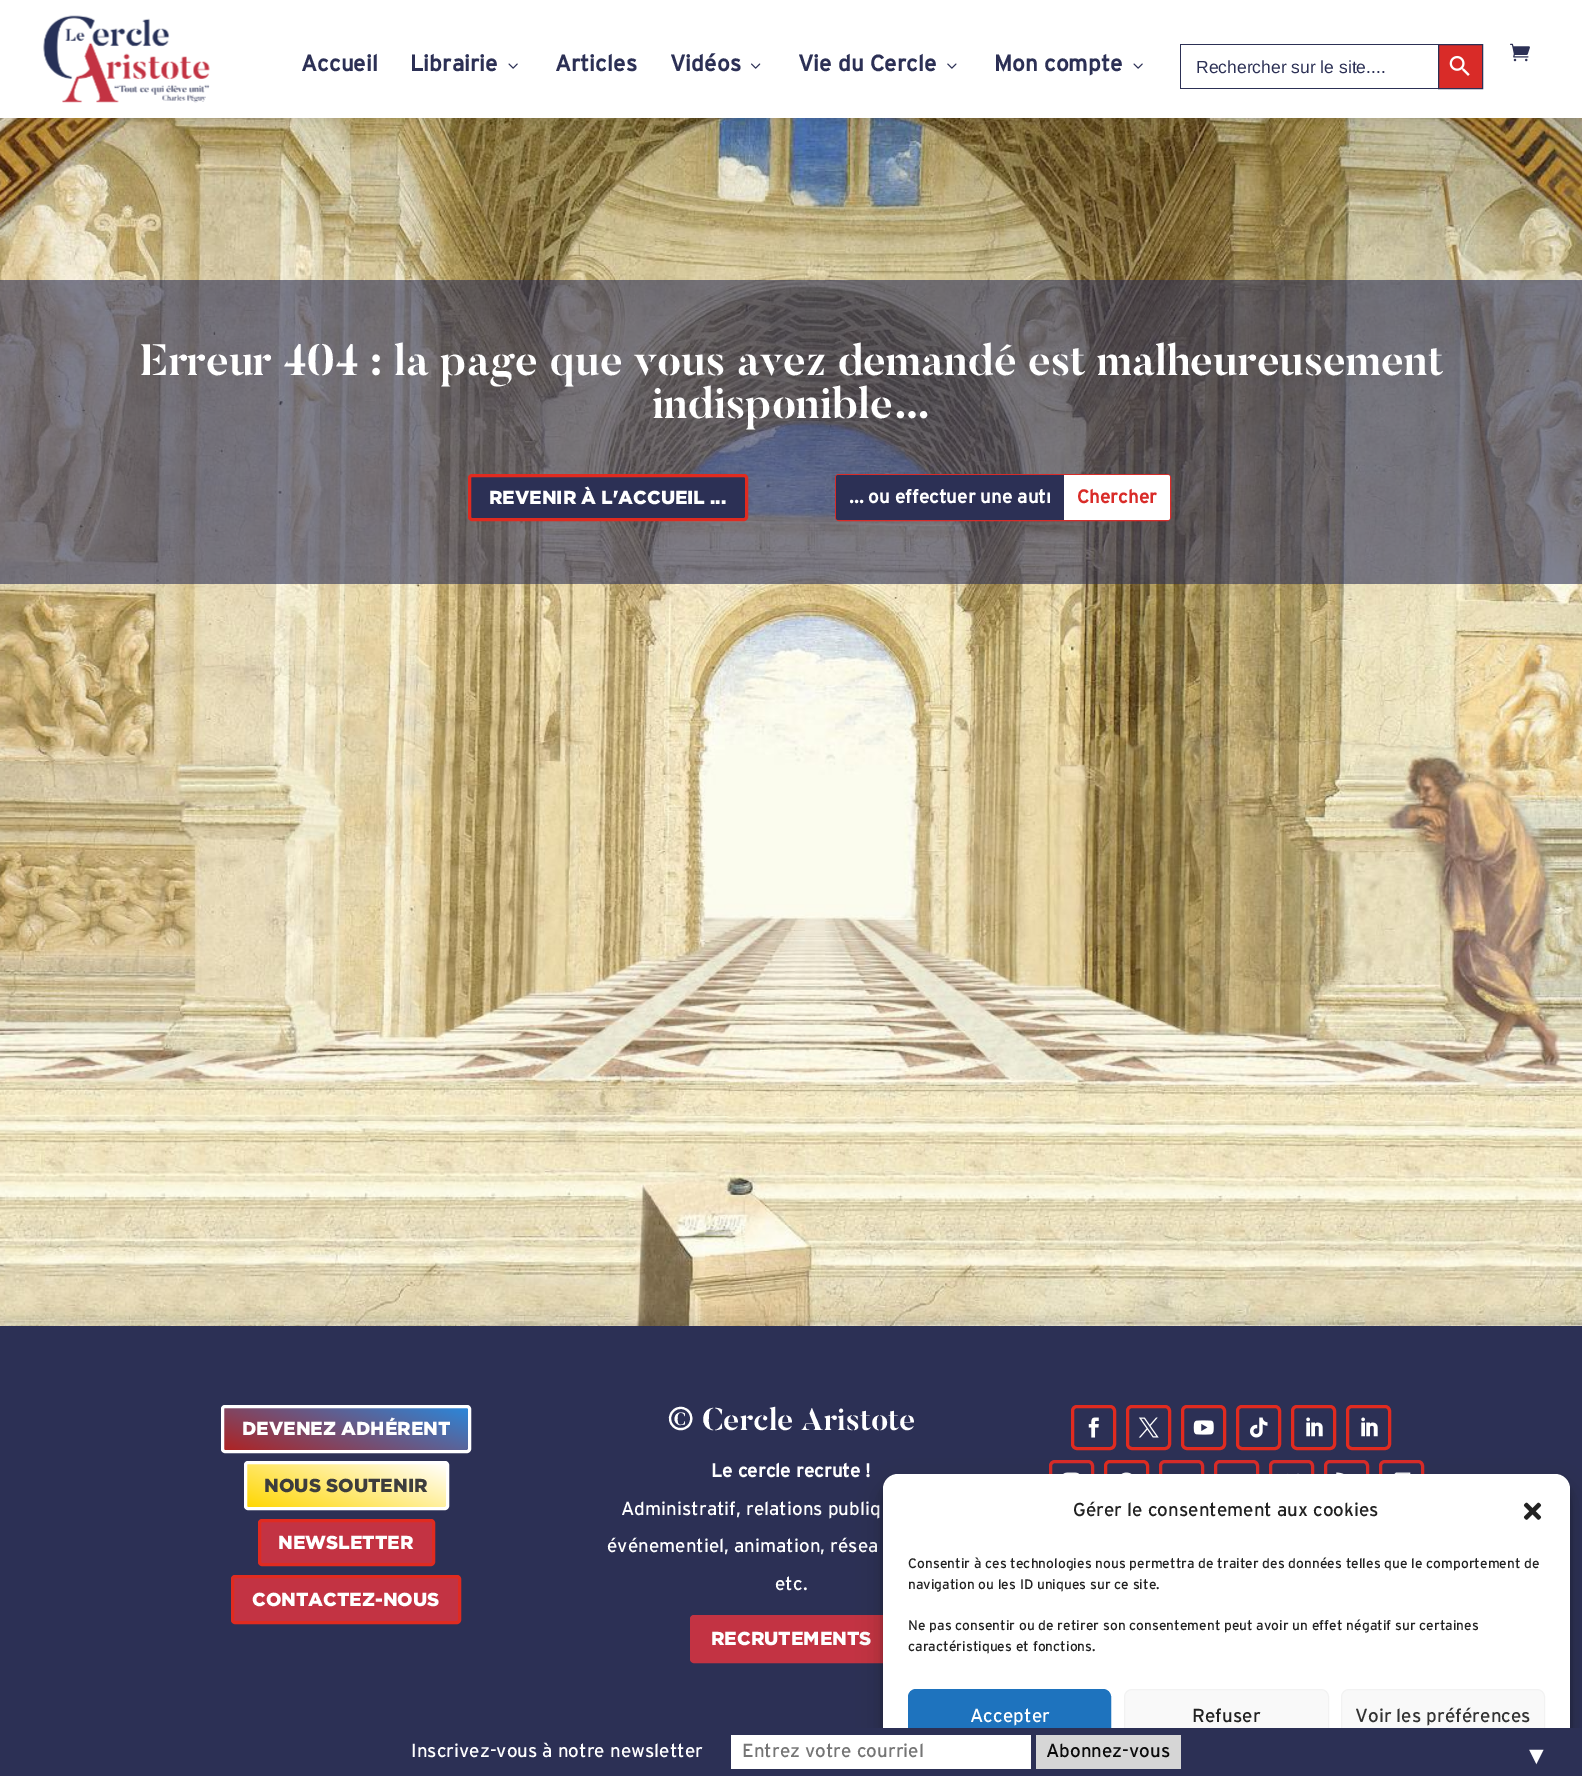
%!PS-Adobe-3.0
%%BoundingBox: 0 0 1582 1776
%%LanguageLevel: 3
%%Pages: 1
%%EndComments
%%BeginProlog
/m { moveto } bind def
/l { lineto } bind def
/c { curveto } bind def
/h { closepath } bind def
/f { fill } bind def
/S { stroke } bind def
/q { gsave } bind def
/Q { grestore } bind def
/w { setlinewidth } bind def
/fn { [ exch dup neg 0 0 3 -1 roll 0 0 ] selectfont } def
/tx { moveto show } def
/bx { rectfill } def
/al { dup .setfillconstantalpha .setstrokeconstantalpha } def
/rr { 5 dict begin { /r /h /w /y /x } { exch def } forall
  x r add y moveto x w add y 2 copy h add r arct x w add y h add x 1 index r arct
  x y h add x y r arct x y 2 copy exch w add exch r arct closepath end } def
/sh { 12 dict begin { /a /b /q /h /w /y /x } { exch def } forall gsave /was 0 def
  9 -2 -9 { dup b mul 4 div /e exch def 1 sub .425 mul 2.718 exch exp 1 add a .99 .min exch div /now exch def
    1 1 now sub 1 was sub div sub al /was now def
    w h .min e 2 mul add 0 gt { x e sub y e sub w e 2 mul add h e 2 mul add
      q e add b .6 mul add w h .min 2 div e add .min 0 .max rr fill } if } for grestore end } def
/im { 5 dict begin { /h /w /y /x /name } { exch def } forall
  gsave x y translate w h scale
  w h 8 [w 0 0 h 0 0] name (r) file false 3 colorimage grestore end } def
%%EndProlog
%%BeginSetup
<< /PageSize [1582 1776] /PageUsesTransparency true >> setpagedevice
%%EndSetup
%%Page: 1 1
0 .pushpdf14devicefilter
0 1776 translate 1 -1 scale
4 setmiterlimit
1 setgray
0 0 1582 1776 bx
(image6.raw) 0 118 1582 1208 im
0 setgray
0 0 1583 118 0 4.5 0.1 sh
1 setgray
0 0 1582 118 bx
(image0.raw) 43 15 167 88 im
/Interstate-Bold 22.5 fn
0.173 0.188 0.333 setrgbcolor
(Accueil) 301 71 tx
(Librairie) 410 71 tx
(image1.raw) 508 63 10 6 im
(Articles) 555 71 tx
(Vidéos) 670 71 tx
(image2.raw) 751 63 10 6 im
(Vie du Cercle) 798 71 tx
(image3.raw) 947 63 10 6 im
(Mon compte) 994 71 tx
(image1.raw) 1133 63 10 6 im
1180 44 258 1 bx
1180 88 258 1 bx
1180 44 1 45 bx
/LiberationSans-Regular 17.5 fn
(Rechercher sur le site....) 1196 73 tx
0.851 0.169 0.157 setrgbcolor
1438.5 44.5 m 1482.5 44.5 l 1482.5 88.5 l 1438.5 88.5 l h q f Q
0.173 0.188 0.333 setrgbcolor
S
(image4.raw) 1449 55 21 21 im
(image5.raw) 1510 43 20 19 im
0.6 al
0 280 1582 178 bx
/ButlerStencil-Bold 43.75 fn
1 al
1 setgray
(Erreur 404 : la page que vous avez demandé est malheureusement) 140 375 tx
(indisponible…) 652 418 tx
0.6 al
0.173 0.188 0.333 setrgbcolor
0 458 1582 126 bx
1 al
469.5 475.5 277 44 2.5 rr q f Q
0.878 0.169 0.125 setrgbcolor
3 w
S
/Gotham-Black 18.75 fn
1 setgray
(REVENIR À L'ACCUEIL ...) 489 504 tx
0.851 0.169 0.157 setrgbcolor
1 w
835.5 474.5 335 46 3.5 rr S
0.173 0.188 0.333 setrgbcolor
838.5 475 m 1064 475 l 1064 520 l 838.5 520 l 837 520 836 519 836 517.5 c 836 477.5 l 836 476 837 475 838.5 475 c h f
q
850 489 200 19 rectclip
/Interstate-Bold 18.75 fn
1 setgray
(... ou effectuer une autr) 849 503 tx
Q
1 setgray
1064 475 m 1167.5 475 l 1169 475 1170 476 1170 477.5 c 1170 517.5 l 1170 519 1169 520 1167.5 520 c 1064 520 l h f
/Interstate-Bold 18.75 fn
0.851 0.169 0.157 setrgbcolor
(Chercher) 1077 503 tx
0 setgray
0 1329 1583 415 0 11 0.3 sh
0.173 0.188 0.333 setrgbcolor
0 1326 1582 402 bx
q 224 1408 m 468 1408 l 468 1450 l 224 1450 l h clip newpath
<< /ShadingType 2 /ColorSpace /DeviceRGB /Coords [364 1374 328 1484] /Extend [true true] /Function << /FunctionType 2 /Domain [0 1] /C0 [0.169 0.529 0.855] /C1 [0.686 0.137 0.137] /N 1 >> >> shfill Q
1 setgray
3 w
222.5 1406.5 247 45 2.5 rr S
/Gotham-Black 18.75 fn
(DEVENEZ ADHÉRENT) 242 1435 tx
q 247 1464 m 446 1464 l 446 1507 l 247 1507 l h clip newpath
<< /ShadingType 2 /ColorSpace /DeviceRGB /Coords [365 1434 328 1537] /Extend [true true] /Function << /FunctionType 2 /Domain [0 1] /C0 [1 1 1] /C1 [1 0.843 0] /N 1 >> >> shfill Q
245.5 1462.5 202 46 2.5 rr S
0.239 setgray
(NOUS SOUTENIR) 264 1492 tx
0.765 0.2 0.263 setrgbcolor
259.5 1520.5 174 44 2.5 rr q f Q
0.878 0.169 0.125 setrgbcolor
S
1 setgray
(NEWSLETTER) 278 1549 tx
0.765 0.2 0.263 setrgbcolor
232.5 1576.5 227 46 2.5 rr q f Q
0.878 0.169 0.125 setrgbcolor
S
1 setgray
(CONTACTEZ-NOUS) 252 1606 tx
/ButlerStencil-Bold 31.25 fn
(© Cercle Aristote) 668 1430 tx
/Interstate-Bold 18.75 fn
(Le cercle recrute !) 711 1477 tx
/Interstate-Regular 18.75 fn
(Administratif, relations publiq) 621 1515 tx
(événementiel, animation, résea) 607 1552 tx
(etc.) 775 1590 tx
0.765 0.2 0.263 setrgbcolor
691.5 1616.5 200 45 2.5 rr q f Q
S
/Gotham-Black 18.75 fn
1 setgray
(RECRUTEMENTS) 711 1645 tx
0.878 0.169 0.125 setrgbcolor
1072.5 1406.5 42 42 4.5 rr S
(image7.raw) 1088 1417 11 21 im
1127.5 1406.5 42 42 4.5 rr S
(image8.raw) 1138 1417 21 21 im
1182.5 1406.5 42 42 4.5 rr S
(image9.raw) 1193 1420 21 15 im
1237.5 1406.5 42 42 4.5 rr S
(image10.raw) 1250 1417 18 21 im
1292.5 1406.5 42 42 4.5 rr S
(image11.raw) 1306 1417 17 20 im
1347.5 1406.5 42 42 4.5 rr S
(image11.raw) 1361 1417 17 20 im
0.851 0.169 0.157 setrgbcolor
1050.5 1461.5 42 42 4.5 rr S
(image12.raw) 1063 1472 17 2 im
0.878 0.169 0.125 setrgbcolor
1105.5 1461.5 42 42 4.5 rr S
(image13.raw) 1121 1472 11 2 im
0.851 0.169 0.157 setrgbcolor
1160.5 1461.5 42 42 4.5 rr S
1215.5 1461.5 42 42 4.5 rr S
1270.5 1461.5 42 42 4.5 rr S
(image14.raw) 1287 1473 12 1 im
1325.5 1461.5 42 42 4.5 rr S
(image15.raw) 1336 1472 8 2 im
1380.5 1461.5 42 42 4.5 rr S
(image16.raw) 1394 1472 17 2 im
0 setgray
883 1481 687 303 15 4 0.23 sh
883 1486 687 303 15 12.5 0.19 sh
1 setgray
883 1474 687 302 15 rr f
/Interstate-Regular 18.75 fn
0.133 setgray
(Gérer le consentement aux cookies) 1073 1516 tx
(image17.raw) 1523 1502 19 18 im
/Interstate-Regular 13.75 fn
(Consentir à ces technologies nous permettra de traiter des données telles que le comportement de) 908 1568 tx
(navigation ou les ID uniques sur ce site.) 908 1589 tx
(Ne pas consentir ou de retirer son consentement peut avoir un effet négatif sur certaines) 908 1630 tx
(caractéristiques et fonctions.) 908 1651 tx
0.118 0.451 0.745 setrgbcolor
908.5 1689.5 202 55 7.5 rr q f Q
1 w
S
/Interstate-Regular 18.75 fn
1 setgray
(Accepter) 970 1722 tx
0.976 setgray
1124.5 1689.5 204 55 7.5 rr q f Q
0.949 setgray
S
0.133 setgray
(Refuser) 1192 1722 tx
0.976 setgray
1341.5 1689.5 203 55 7.5 rr q f Q
0.949 setgray
S
0.2 setgray
(Voir les préférences) 1355 1722 tx
0.173 0.188 0.333 setrgbcolor
0 1728 1582 48 bx
1 setgray
(Inscrivez-vous à notre newsletter) 411 1757 tx
731 1735 300 34 bx
0.459 setgray
(Entrez votre courriel) 742 1757 tx
0.839 setgray
1036 1735 145 34 bx
0.039 setgray
(Abonnez-vous) 1046 1757 tx
/LiberationSans-Regular 25 fn
1 setgray
(▼) 1524 1764 tx
.poppdf14devicefilter showpage
%%EOF
